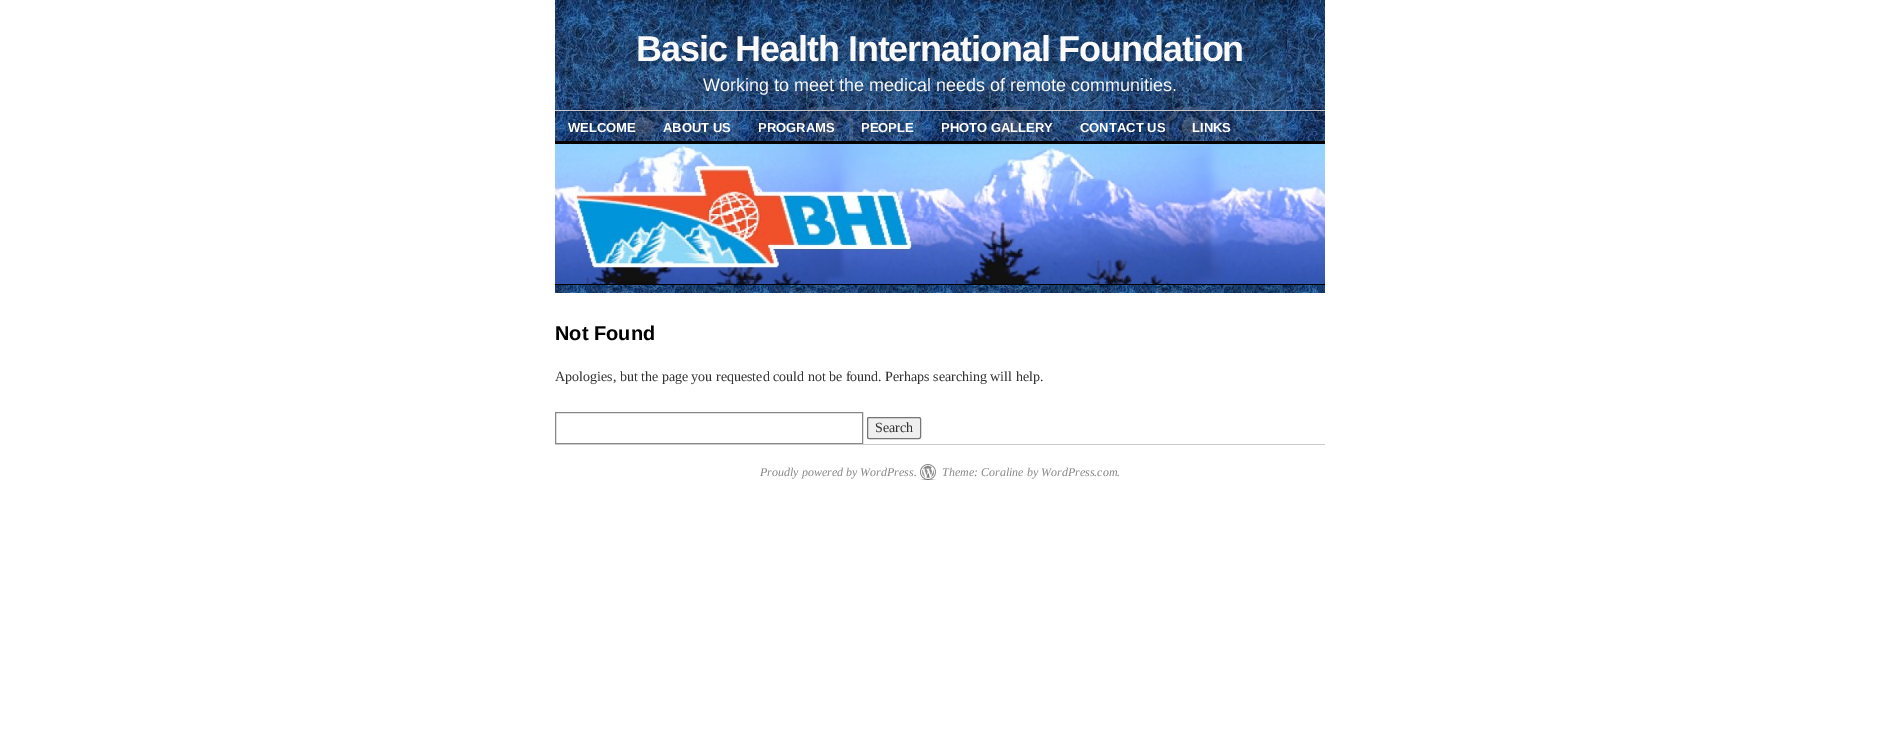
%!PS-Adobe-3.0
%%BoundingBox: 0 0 1880 746
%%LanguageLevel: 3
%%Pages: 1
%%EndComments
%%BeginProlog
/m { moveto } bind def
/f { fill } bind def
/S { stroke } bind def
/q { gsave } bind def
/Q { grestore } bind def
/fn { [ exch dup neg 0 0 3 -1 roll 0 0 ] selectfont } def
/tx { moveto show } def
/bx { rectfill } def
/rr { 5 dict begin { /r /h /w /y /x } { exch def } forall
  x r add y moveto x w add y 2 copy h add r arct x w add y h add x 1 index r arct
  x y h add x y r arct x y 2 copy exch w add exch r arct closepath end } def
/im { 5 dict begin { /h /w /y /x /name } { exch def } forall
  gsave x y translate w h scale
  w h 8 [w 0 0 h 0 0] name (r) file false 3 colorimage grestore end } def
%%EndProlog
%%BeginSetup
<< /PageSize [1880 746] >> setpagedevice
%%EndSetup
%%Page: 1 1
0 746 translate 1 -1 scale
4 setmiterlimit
1 setgray
0 0 1880 746 bx
(image0.raw) 555 0 770 293 im
/LiberationSans-Bold 36 fn
0.976 setgray
636 61 m -1.1 0 (Basic Health International Foundation) ashow
/LiberationSans-Regular 18 fn
(Working to meet the medical needs of remote communities.) 703 91 tx
0.8 setgray
555 110 770 1 bx
/LiberationSans-Bold 13 fn
1 setgray
(WELCOME) 568 132 tx
(ABOUT US) 663 132 tx
(PROGRAMS) 758 132 tx
(PEOPLE) 861 132 tx
(PHOTO GALLERY) 941 132 tx
(CONTACT US) 1080 132 tx
(LINKS) 1192 132 tx
0 setgray
555 141 770 3 bx
(image1.raw) 555 144 770 140 im
555 284 770 1 bx
/LiberationSans-Bold 20 fn
(Not Found) 555 340 tx
/LiberationSerif-Regular 14 fn
0.2 setgray
(Apologies, but the page you requested could not be found. Perhaps searching will help.) 555 381 tx
0.533 setgray
555.5 412.5 307 31 rectstroke
0.937 setgray
867.5 417.5 53 21 1.5 rr q f Q
0.463 setgray
S
0.2 setgray
(Search) 875 432 tx
0.8 setgray
555 444 770 1 bx
(image2.raw) 920 464 16 16 im
/LiberationSerif-Italic 12 fn
0.533 setgray
(Proudly powered by WordPress.) 760 476 tx
(Theme: Coraline by WordPress.com.) 942 476 tx
showpage
%%EOF
